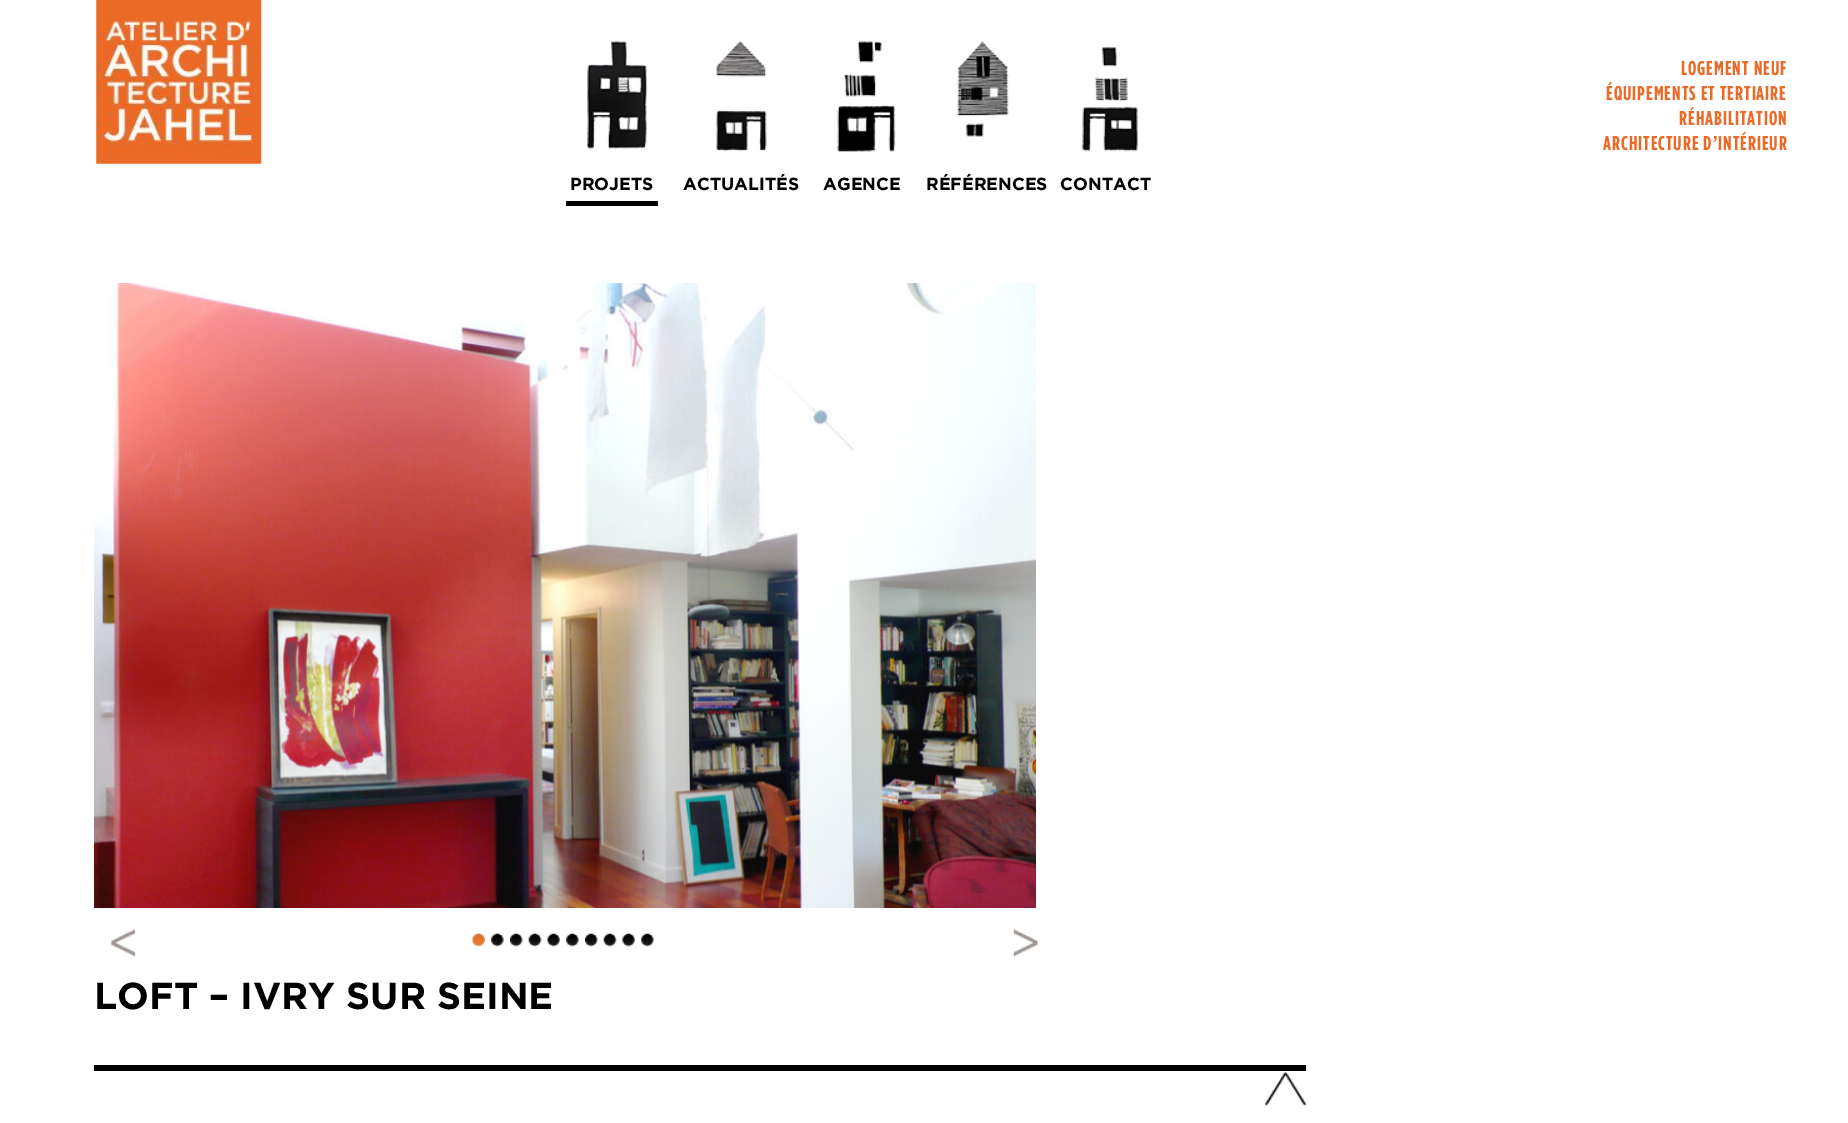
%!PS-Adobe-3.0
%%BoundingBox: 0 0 1848 1123
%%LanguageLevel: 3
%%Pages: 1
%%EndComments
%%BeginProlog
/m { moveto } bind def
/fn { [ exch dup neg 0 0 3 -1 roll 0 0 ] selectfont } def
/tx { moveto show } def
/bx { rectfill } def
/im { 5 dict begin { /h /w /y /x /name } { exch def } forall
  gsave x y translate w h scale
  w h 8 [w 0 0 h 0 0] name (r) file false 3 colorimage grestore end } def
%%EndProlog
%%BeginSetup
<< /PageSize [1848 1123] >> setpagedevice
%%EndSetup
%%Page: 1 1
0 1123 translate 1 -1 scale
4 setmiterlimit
1 setgray
0 0 1848 1123 bx
(image0.raw) 96 0 166 164 im
/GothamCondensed-Bold 20 fn
0.922 0.416 0.153 setrgbcolor
1681 75 m 1 0 (LOGEMENT NEUF) ashow
1606 100 m 1 0 (ÉQUIPEMENTS ET TERTIAIRE) ashow
1679 125 m 1 0 (RÉHABILITATION) ashow
1603 150 m 1 0 (ARCHITECTURE D’INTÉRIEUR) ashow
(image1.raw) 586 41 62 108 im
0 setgray
566 201 92 5 bx
/Gotham-Bold 17.5 fn
(PROJETS) 570 190 tx
(image2.raw) 714 41 53 111 im
(ACTUALITÉS) 683 190 tx
(image3.raw) 837 41 59 111 im
(AGENCE) 823 190 tx
(image4.raw) 957 41 52 96 im
(RÉFÉRENCES) 926 190 tx
(image5.raw) 1081 47 57 105 im
(CONTACT) 1060 190 tx
(image6.raw) 94 283 942 625 im
(image7.raw) 111 928 25 29 im
(image8.raw) 1013 928 25 29 im
(image9.raw) 472 933 13 14 im
(image10.raw) 491 933 13 14 im
(image11.raw) 510 933 13 14 im
(image12.raw) 528 933 14 14 im
(image13.raw) 547 933 13 14 im
(image10.raw) 566 933 13 14 im
(image14.raw) 585 933 13 14 im
(image12.raw) 603 933 14 14 im
(image13.raw) 622 933 13 14 im
(image10.raw) 641 933 13 14 im
/Gotham-Bold 37.5 fn
(LOFT – IVRY SUR SEINE) 94 1009 tx
94 1065 1212 6 bx
(image15.raw) 1264 1072 43 34 im
showpage
%%EOF
